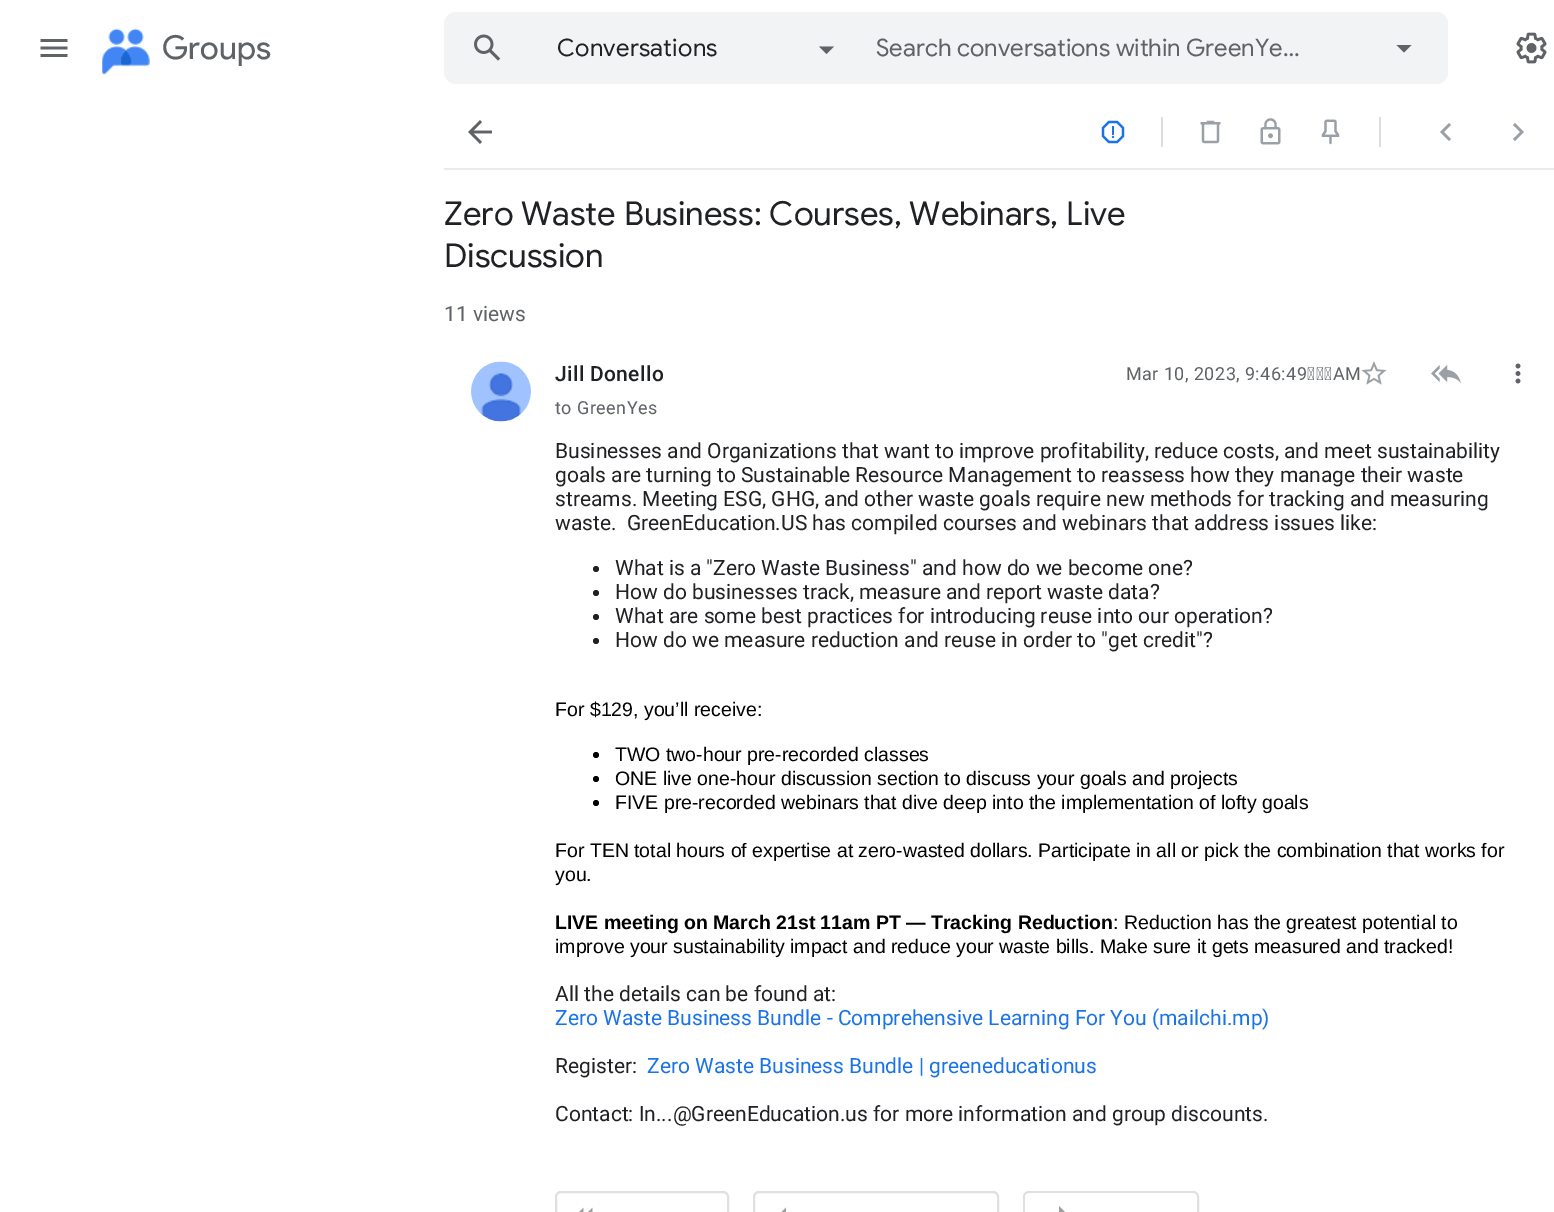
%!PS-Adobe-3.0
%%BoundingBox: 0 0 1554 1212
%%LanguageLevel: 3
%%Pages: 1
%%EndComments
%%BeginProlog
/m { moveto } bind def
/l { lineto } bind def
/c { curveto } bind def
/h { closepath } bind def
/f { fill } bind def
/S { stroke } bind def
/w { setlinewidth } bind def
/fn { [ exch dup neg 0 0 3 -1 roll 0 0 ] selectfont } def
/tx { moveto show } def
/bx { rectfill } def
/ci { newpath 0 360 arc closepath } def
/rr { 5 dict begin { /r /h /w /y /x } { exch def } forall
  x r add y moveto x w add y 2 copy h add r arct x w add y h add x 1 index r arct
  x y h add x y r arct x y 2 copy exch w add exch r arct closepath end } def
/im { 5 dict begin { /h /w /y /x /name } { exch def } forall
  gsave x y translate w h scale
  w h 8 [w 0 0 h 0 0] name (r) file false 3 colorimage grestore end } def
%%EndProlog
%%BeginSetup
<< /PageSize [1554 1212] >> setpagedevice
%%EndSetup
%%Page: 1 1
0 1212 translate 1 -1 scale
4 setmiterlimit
1 setgray
0 0 1554 1212 bx
(image0.raw) 40 39 28 18 im
(image1.raw) 102 28 48 47 im
/ProductSans-Regular 33 fn
0.373 0.388 0.408 setrgbcolor
(Groups) 162 59 tx
0.945 0.953 0.957 setrgbcolor
444 12 1004 72 12 rr f
(image2.raw) 474 34 27 27 im
/GoogleSans-Regular 24 fn
0.125 0.129 0.141 setrgbcolor
557 56 m 0.25 0 (Conversations) ashow
0.373 0.388 0.408 setrgbcolor
819 46.5 m 834 46.5 l 826.5 54 l h f
(Search conversations within GreenYe…) 876 56 tx
1396.5 45 m 1404 52.5 l 1411.5 45 l h f
(image3.raw) 1516 32 31 32 im
0.91 0.918 0.929 setrgbcolor
444 168 1110 2 bx
(image4.raw) 468 120 24 24 im
(image5.raw) 1101 120 24 24 im
0.867 setgray
1161 117 2 30 bx
(image6.raw) 1200 120 21 24 im
(image7.raw) 1260 118 21 27 im
(image8.raw) 1321 119 19 26 im
1379 117 2 30 bx
0.604 0.627 0.651 setrgbcolor
1451 125 m 1444 132 l 1451 139 l 1449 141 l 1440 132 l 1449 123 l h f
1515 123 m 1524 132 l 1515 141 l 1513 139 l 1520 132 l 1513 125 l h f
/GoogleSans-Regular 33 fn
0.125 0.129 0.141 setrgbcolor
(Zero Waste Business: Courses, Webinars, Live) 444 225 tx
(Discussion) 444 267 tx
/Roboto-Regular 21 fn
0.373 0.388 0.408 setrgbcolor
(11 views) 444 321 tx
(image9.raw) 471 361 60 61 im
/Roboto-Medium 21 fn
0.125 0.129 0.141 setrgbcolor
555 381 m 0.4 0 (Jill Donello) ashow
/Roboto-Regular 18 fn
0.373 0.388 0.408 setrgbcolor
1126 380 m 0.45 0 (Mar 10, 2023, 9:46:49 AM) ashow
(image10.raw) 1361 361 26 24 im
(image11.raw) 1431 365 30 19 im
(image12.raw) 1515 363 6 21 im
555 414 m 0.45 0 (to GreenYes) ashow
/Roboto-Regular 21 fn
0.125 0.129 0.141 setrgbcolor
(Businesses and Organizations that want to improve profitability, reduce costs, and meet sustainability) 555 458 tx
(goals are turning to Sustainable Resource Management to reassess how they manage their waste) 555 482 tx
(streams. Meeting ESG, GHG, and other waste goals require new methods for tracking and measuring) 555 506 tx
(waste.  GreenEducation.US has compiled courses and webinars that address issues like:) 555 530 tx
0.129 setgray
596 569 3 ci f
0.125 0.129 0.141 setrgbcolor
(What is a "Zero Waste Business" and how do we become one?) 615 575 tx
0.129 setgray
596 593 3 ci f
0.125 0.129 0.141 setrgbcolor
(How do businesses track, measure and report waste data?) 615 599 tx
0.129 setgray
596 617 3 ci f
0.125 0.129 0.141 setrgbcolor
(What are some best practices for introducing reuse into our operation?) 615 623 tx
0.129 setgray
596 641 3 ci f
0.125 0.129 0.141 setrgbcolor
(How do we measure reduction and reuse in order to "get credit"?) 615 647 tx
/LiberationSans-Regular 19.5 fn
0 setgray
(For $129, you’ll receive:) 555 716 tx
596 755 3 ci f
(TWO two-hour pre-recorded classes) 615 761 tx
596 779 3 ci f
(ONE live one-hour discussion section to discuss your goals and projects) 615 785 tx
596 803 3 ci f
(FIVE pre-recorded webinars that dive deep into the implementation of lofty goals) 615 809 tx
(For TEN total hours of expertise at zero-wasted dollars. Participate in all or pick the combination that works for) 555 857 tx
(you.) 555 881 tx
/LiberationSans-Bold 19.5 fn
(LIVE meeting on March 21st 11am PT — Tracking Reduction) 555 929 tx
/LiberationSans-Regular 19.5 fn
(: Reduction has the greatest potential to) 1113 929 tx
(improve your sustainability impact and reduce your waste bills. Make sure it gets measured and tracked!) 555 953 tx
/Roboto-Regular 21 fn
0.125 0.129 0.141 setrgbcolor
(All the details can be found at:) 555 1001 tx
0.102 0.451 0.91 setrgbcolor
(Zero Waste Business Bundle - Comprehensive Learning For You \(mailchi.mp\)) 555 1025 tx
0.125 0.129 0.141 setrgbcolor
(Register:) 555 1073 tx
0.102 0.451 0.91 setrgbcolor
(Zero Waste Business Bundle | greeneducationus) 647 1073 tx
0.125 0.129 0.141 setrgbcolor
(Contact: In...@GreenEducation.us for more information and group discounts.) 555 1121 tx
0.878 setgray
2 w
556 1192 172 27 5 rr S
(image13.raw) 579 1207 14 5 im
754 1192 244 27 5 rr S
0.62 setgray
786 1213.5 m 795 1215 800.5 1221 802.5 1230 c 799 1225 793.5 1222.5 786 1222.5 c 786 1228.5 l 775.5 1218 l 786 1207.5 l h f
0.878 setgray
1024 1192 174 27 5 rr S
1 setgray
1030 1193 m 1192 1193 l 1195 1193 1197 1195 1197 1198 c 1197 1212 l 1025 1212 l 1025 1198 l 1025 1195 1027 1193 1030 1193 c h f
0.62 setgray
1059 1212 m 1059 1206 l 1071 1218 l 1059 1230 l 1059 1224 l 1047 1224 l 1047 1212 l h f
showpage
%%EOF
